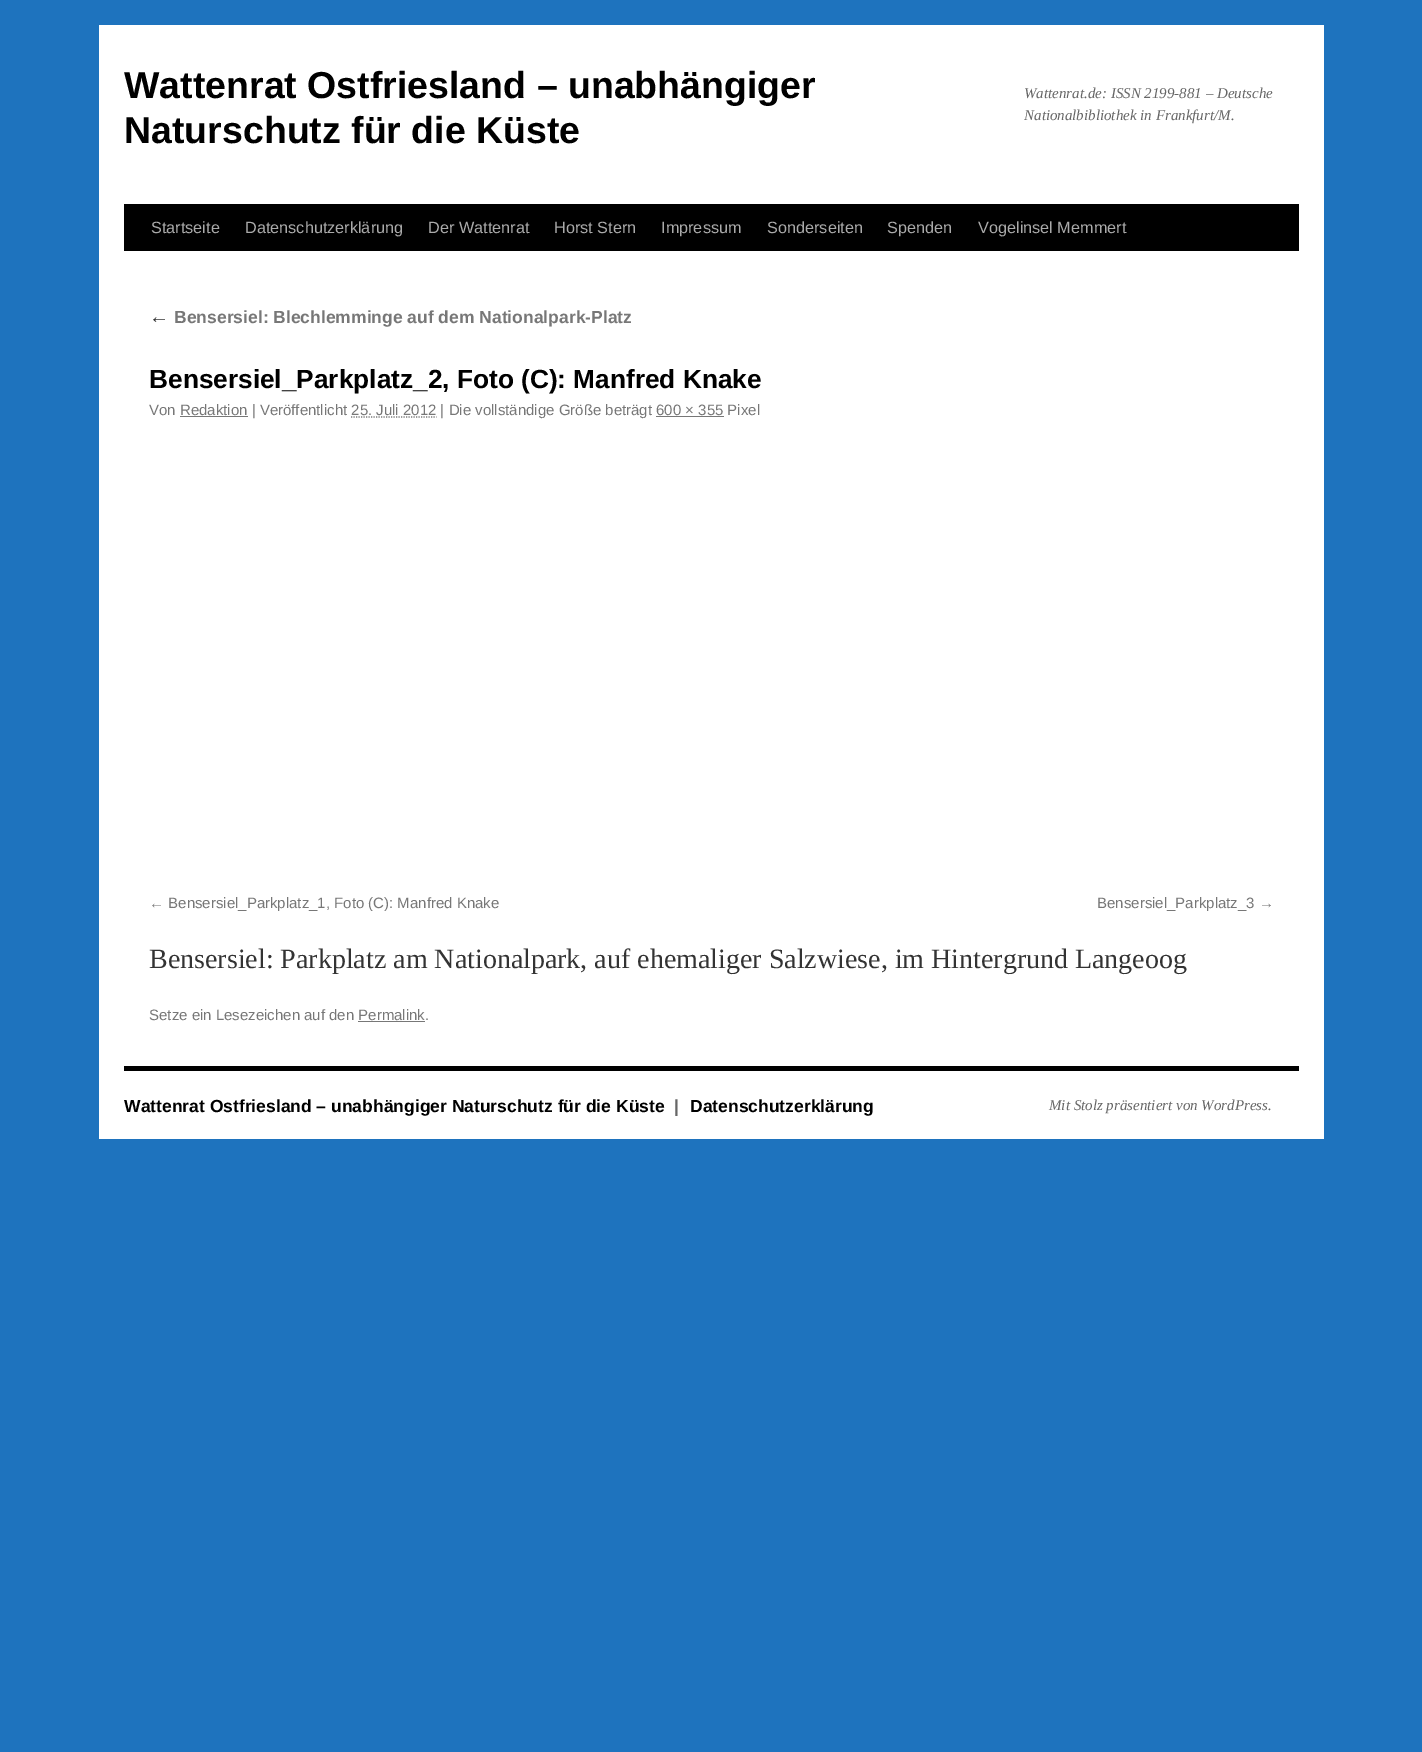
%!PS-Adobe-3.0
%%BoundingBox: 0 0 1422 1752
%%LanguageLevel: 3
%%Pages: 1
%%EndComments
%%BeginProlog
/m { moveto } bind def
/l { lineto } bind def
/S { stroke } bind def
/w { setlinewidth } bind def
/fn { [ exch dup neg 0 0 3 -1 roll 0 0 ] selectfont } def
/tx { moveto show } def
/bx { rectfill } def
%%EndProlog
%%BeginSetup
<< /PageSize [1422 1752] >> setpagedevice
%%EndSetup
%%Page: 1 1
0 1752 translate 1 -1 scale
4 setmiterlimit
0.118 0.451 0.745 setrgbcolor
0 0 1422 1752 bx
1 setgray
99 25 1225 1114 bx
/LiberationSans-Bold 37.5 fn
0 setgray
(Wattenrat Ostfriesland – unabhängiger) 124 98 tx
(Naturschutz für die Küste) 124 143 tx
/LiberationSerif-Italic 15 fn
0.4 setgray
(Wattenrat.de: ISSN 2199-881 – Deutsche) 1024 98 tx
(Nationalbibliothek in Frankfurt/M.) 1024 120 tx
0 setgray
124 204 1175 47 bx
/LiberationSans-Regular 16.25 fn
0.667 setgray
(Startseite) 151 233 tx
(Datenschutzerklärung) 245 233 tx
(Der Wattenrat) 428 233 tx
(Horst Stern) 554 233 tx
(Impressum) 661 233 tx
(Sonderseiten) 767 233 tx
(Spenden) 887 233 tx
(Vogelinsel Memmert) 978 233 tx
/LiberationSerif-Italic 20 fn
0.2 setgray
(←) 149 323 tx
/LiberationSans-Bold 17.5 fn
0.467 setgray
(Bensersiel: Blechlemminge auf dem Nationalpark-Platz) 174 323 tx
/LiberationSans-Bold 26.25 fn
0 setgray
(Bensersiel_Parkplatz_2, Foto \(C\): Manfred Knake) 149 388 tx
/LiberationSans-Regular 15 fn
0.467 setgray
(Von Redaktion | Veröffentlicht 25. Juli 2012 | Die vollständige Größe beträgt 600 × 355 Pixel) 149 415 tx
180 416 68 1 bx
1.2 w
[1.25 1.25] 0 setdash
351 417 m 436.5 417 l S
656 416 68 1 bx
(← Bensersiel_Parkplatz_1, Foto \(C\): Manfred Knake) 149 908 tx
(Bensersiel_Parkplatz_3 →) 1097 908 tx
/LiberationSerif-Regular 28 fn
0.2 setgray
(Bensersiel: Parkplatz am Nationalpark, auf ehemaliger Salzwiese, im Hintergrund Langeoog) 149 968 tx
/LiberationSans-Regular 15 fn
0.467 setgray
(Setze ein Lesezeichen auf den Permalink.) 149 1020 tx
358 1021 67 1 bx
0 setgray
124 1066 1175 5 bx
/LiberationSans-Bold 17.5 fn
(Wattenrat Ostfriesland – unabhängiger Naturschutz für die Küste) 124 1112 tx
0.4 setgray
(|) 674 1112 tx
0 setgray
(Datenschutzerklärung) 690 1112 tx
/LiberationSerif-Italic 15 fn
0.4 setgray
(Mit Stolz präsentiert von WordPress.) 1049 1110 tx
showpage
%%EOF
